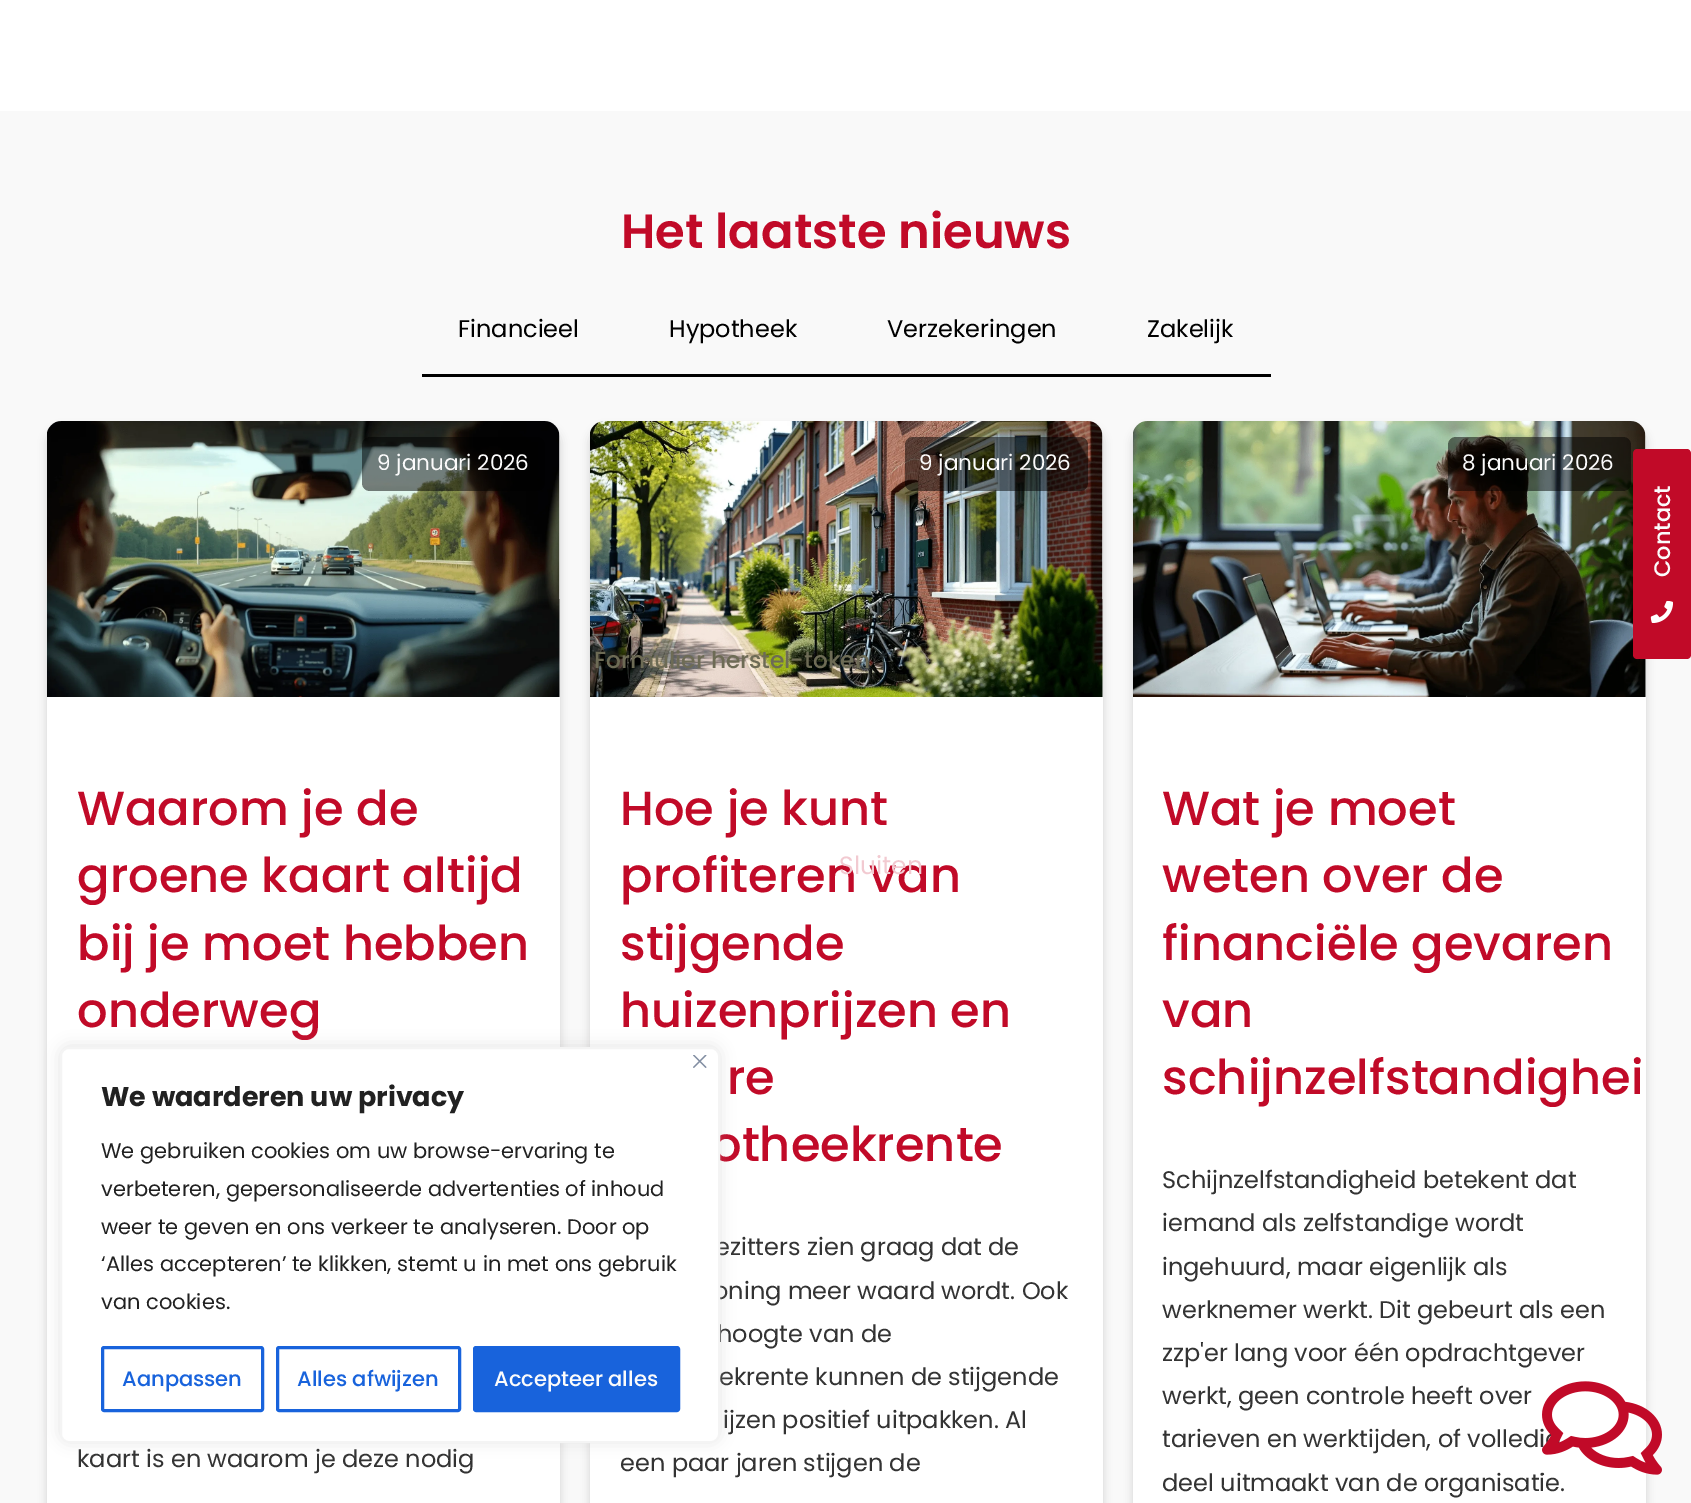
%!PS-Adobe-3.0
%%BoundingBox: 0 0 1691 1503
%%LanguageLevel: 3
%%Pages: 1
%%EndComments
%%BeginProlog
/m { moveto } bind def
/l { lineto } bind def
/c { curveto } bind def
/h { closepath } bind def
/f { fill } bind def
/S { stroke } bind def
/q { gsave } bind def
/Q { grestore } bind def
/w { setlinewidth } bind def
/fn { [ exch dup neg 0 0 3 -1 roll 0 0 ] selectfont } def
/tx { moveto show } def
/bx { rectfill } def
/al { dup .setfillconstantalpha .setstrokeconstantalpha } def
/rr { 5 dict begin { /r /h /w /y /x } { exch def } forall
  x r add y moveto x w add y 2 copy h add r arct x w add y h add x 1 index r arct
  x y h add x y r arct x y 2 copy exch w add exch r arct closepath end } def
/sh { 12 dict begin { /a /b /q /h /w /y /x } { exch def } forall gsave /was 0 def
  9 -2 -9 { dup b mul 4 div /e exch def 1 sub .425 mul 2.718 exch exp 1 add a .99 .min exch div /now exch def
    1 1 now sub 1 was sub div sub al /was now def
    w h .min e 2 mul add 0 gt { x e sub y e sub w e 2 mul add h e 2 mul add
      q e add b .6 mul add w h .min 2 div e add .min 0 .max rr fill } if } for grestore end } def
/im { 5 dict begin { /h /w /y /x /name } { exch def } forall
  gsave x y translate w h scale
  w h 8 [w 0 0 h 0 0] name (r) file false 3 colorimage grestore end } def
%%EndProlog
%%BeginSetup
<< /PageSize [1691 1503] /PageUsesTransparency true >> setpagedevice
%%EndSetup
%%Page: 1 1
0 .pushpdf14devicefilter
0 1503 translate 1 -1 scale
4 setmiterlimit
1 setgray
0 0 1691 1503 bx
0.976 setgray
0 111 1691 1392 bx
/Poppins-SemiBold 48 fn
0.757 0.039 0.157 setrgbcolor
(Het laatste nieuws) 621 248 tx
0 setgray
422 374 849 3 bx
/Poppins-Regular 24 fn
(Financieel) 458 337 tx
(Hypotheek) 669 337 tx
(Verzekeringen) 887 337 tx
(Zakelijk) 1147 337 tx
47 428 513 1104 15 4.5 0.15 sh
1 setgray
47 422 513 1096 15 rr f
(image0.raw) 47 421 513 276 im
0.5 al
0 setgray
362 437 183 54 8 rr f
/Poppins-Regular 21.5 fn
1 al
0.984 setgray
(9 januari 2026) 377 470 tx
/Poppins-Medium 48 fn
0.757 0.039 0.157 setrgbcolor
(Waarom je de) 77 825 tx
(groene kaart altijd) 77 892 tx
(bij je moet hebben) 77 960 tx
(onderweg) 77 1027 tx
/Poppins-Regular 24 fn
0.2 setgray
(kaart is en waarom je deze nodig) 77 1467 tx
0 setgray
590 428 513 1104 15 4.5 0.15 sh
1 setgray
590 422 513 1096 15 rr f
(image1.raw) 590 421 513 276 im
0.5 al
0 setgray
905 437 183 54 8 rr f
/Poppins-Regular 21.5 fn
1 al
0.984 setgray
(9 januari 2026) 919 470 tx
/Poppins-Medium 48 fn
0.757 0.039 0.157 setrgbcolor
(Hoe je kunt) 620 825 tx
(profiteren van) 620 892 tx
(stijgende) 620 960 tx
(huizenprijzen en) 620 1027 tx
(re) 727 1094 tx
(otheekrente) 711 1161 tx
/Poppins-Regular 24 fn
0.2 setgray
(ezitters zien graag dat de) 715 1255 tx
(oning meer waard wordt. Ook) 713 1299 tx
(hoogte van de) 717 1342 tx
(ekrente kunnen de stijgende) 719 1385 tx
(ijzen positief uitpakken. Al) 723 1428 tx
(een paar jaren stijgen de) 620 1471 tx
0 setgray
1133 428 513 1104 15 4.5 0.15 sh
1 setgray
1133 422 513 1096 15 rr f
(image2.raw) 1133 421 513 276 im
0.5 al
0 setgray
1448 437 183 54 8 rr f
/Poppins-Regular 21.5 fn
1 al
0.984 setgray
(8 januari 2026) 1462 470 tx
/Poppins-Medium 48 fn
0.757 0.039 0.157 setrgbcolor
(Wat je moet) 1162 825 tx
(weten over de) 1162 892 tx
(financiële gevaren) 1162 960 tx
(van) 1162 1027 tx
(schijnzelfstandighei) 1162 1094 tx
/Poppins-Regular 24 fn
0.2 setgray
(Schijnzelfstandigheid betekent dat) 1162 1188 tx
(iemand als zelfstandige wordt) 1162 1231 tx
(ingehuurd, maar eigenlijk als) 1162 1275 tx
(werknemer werkt. Dit gebeurt als een) 1162 1318 tx
(zzp'er lang voor één opdrachtgever) 1162 1361 tx
(werkt, geen controle heeft over) 1162 1404 tx
(tarieven en werktijden, of volledi) 1162 1447 tx
(deel uitmaakt van de organisatie.) 1162 1491 tx
0.757 0.039 0.157 setrgbcolor
1633 655 m 1633 454 l 1633 451 1635 449 1637 449 c 1687 449 l 1689 449 1691 451 1691 454 c 1691 655 l 1691 657 1689 659 1687 659 c 1637 659 l 1635 659 1633 657 1633 655 c h f
/Poppins-Medium 22.5 fn
0.984 setgray
q 1670 577 translate -90 rotate 0 0 m (Contact) show Q
(image3.raw) 1650 600 23 23 im
(image4.raw) 1542 1381 120 94 im
/Poppins-Medium 23.25 fn
0.427 0.42 0.333 setrgbcolor
(Formulier herstel-token) 594 668 tx
0.125 0.149 0.157 setrgbcolor
(*) 877 668 tx
/Poppins-Regular 25 fn
0.949 0.792 0.82 setrgbcolor
(Sluiten) 839 874 tx
0.675 0.671 0.671 setrgbcolor
60 1046 660 396 9 7.5 0.3 sh
1 setgray
61 1048 658 394 8 rr q f Q
0.957 setgray
2 w
S
(image5.raw) 693 1055 14 13 im
/Poppins-Bold 27 fn
0.129 setgray
(We waarderen uw privacy) 101 1106 tx
/Poppins-Regular 21 fn
(We gebruiken cookies om uw browse-ervaring te) 101 1158 tx
(verbeteren, gepersonaliseerde advertenties of inhoud) 101 1196 tx
(weer te geven en ons verkeer te analyseren. Door op) 101 1234 tx
(‘Alles accepteren’ te klikken, stemt u in met ons gebruik) 101 1271 tx
(van cookies.) 101 1309 tx
0.094 0.388 0.863 setrgbcolor
3 w
102.5 1347.5 160 63 1.5 rr S
/Poppins-Medium 21 fn
(Aanpassen) 122 1386 tx
277.5 1347.5 182 63 1.5 rr S
(Alles afwijzen) 297 1386 tx
474.5 1347.5 204 63 1.5 rr q f Q
S
0.984 setgray
(Accepteer alles) 494 1386 tx
.poppdf14devicefilter showpage
%%EOF
